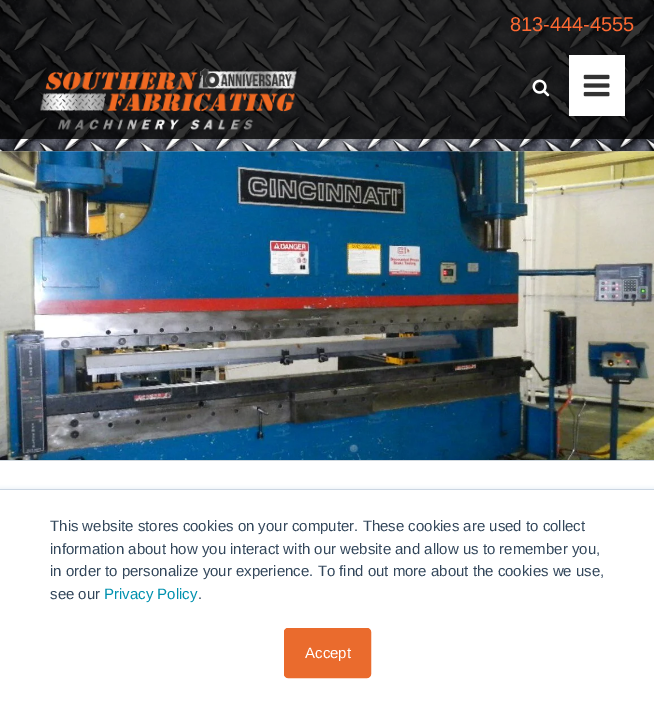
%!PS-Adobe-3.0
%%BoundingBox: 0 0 654 709
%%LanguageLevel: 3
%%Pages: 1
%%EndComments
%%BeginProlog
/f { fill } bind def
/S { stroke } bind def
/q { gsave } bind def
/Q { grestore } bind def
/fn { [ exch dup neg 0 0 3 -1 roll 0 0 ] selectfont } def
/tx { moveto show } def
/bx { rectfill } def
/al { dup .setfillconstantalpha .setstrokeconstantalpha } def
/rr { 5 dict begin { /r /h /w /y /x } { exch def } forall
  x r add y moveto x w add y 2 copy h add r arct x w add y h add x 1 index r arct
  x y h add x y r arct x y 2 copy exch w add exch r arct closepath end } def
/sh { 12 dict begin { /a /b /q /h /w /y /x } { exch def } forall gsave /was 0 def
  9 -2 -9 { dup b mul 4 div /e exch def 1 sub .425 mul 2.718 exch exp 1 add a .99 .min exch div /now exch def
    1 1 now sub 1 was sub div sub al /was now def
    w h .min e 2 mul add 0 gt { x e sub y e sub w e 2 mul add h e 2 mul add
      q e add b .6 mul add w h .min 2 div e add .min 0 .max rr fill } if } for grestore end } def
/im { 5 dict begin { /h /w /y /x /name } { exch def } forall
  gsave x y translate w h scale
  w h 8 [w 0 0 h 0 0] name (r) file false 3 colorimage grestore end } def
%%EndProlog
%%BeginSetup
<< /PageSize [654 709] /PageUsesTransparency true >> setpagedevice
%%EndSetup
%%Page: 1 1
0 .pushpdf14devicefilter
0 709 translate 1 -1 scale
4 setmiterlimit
1 setgray
0 0 654 709 bx
0.816 0.847 0.871 setrgbcolor
0 460 654 1 bx
(image0.raw) 0 0 654 152 im
0.8 al
0 setgray
0 0 654 50 bx
/LiberationSans-Regular 20 fn
1 al
1 0.412 0.196 setrgbcolor
(813-444-4555) 510 31 tx
0.8 al
0 setgray
0 50 654 89 bx
1 al
(image1.raw) 40 68 257 62 im
(image2.raw) 532 79 18 18 im
(image3.raw) 0 151 654 309 im
1 setgray
569 55 56 61 bx
(image4.raw) 583 74 27 23 im
0.918 0.941 0.965 setrgbcolor
0 488 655 221 0 2 1 sh
1 setgray
0 490 654 219 bx
0.796 0.839 0.886 setrgbcolor
0 489 654 1 bx
/LiberationSans-Regular 15 fn
0.2 0.278 0.357 setrgbcolor
(This website stores cookies on your computer. These cookies are used to collect) 50 531 tx
(information about how you interact with our website and allow us to remember you,) 50 554 tx
(in order to personalize your experience. To find out more about the cookies we use,) 50 576 tx
(see our) 50 599 tx
0 0.569 0.682 setrgbcolor
(Privacy Policy) 104 599 tx
0.2 0.278 0.357 setrgbcolor
(.) 198 599 tx
0.918 0.42 0.176 setrgbcolor
284.5 628.5 86 49 3.5 rr q f Q
S
1 setgray
(Accept) 305 658 tx
.poppdf14devicefilter showpage
%%EOF
